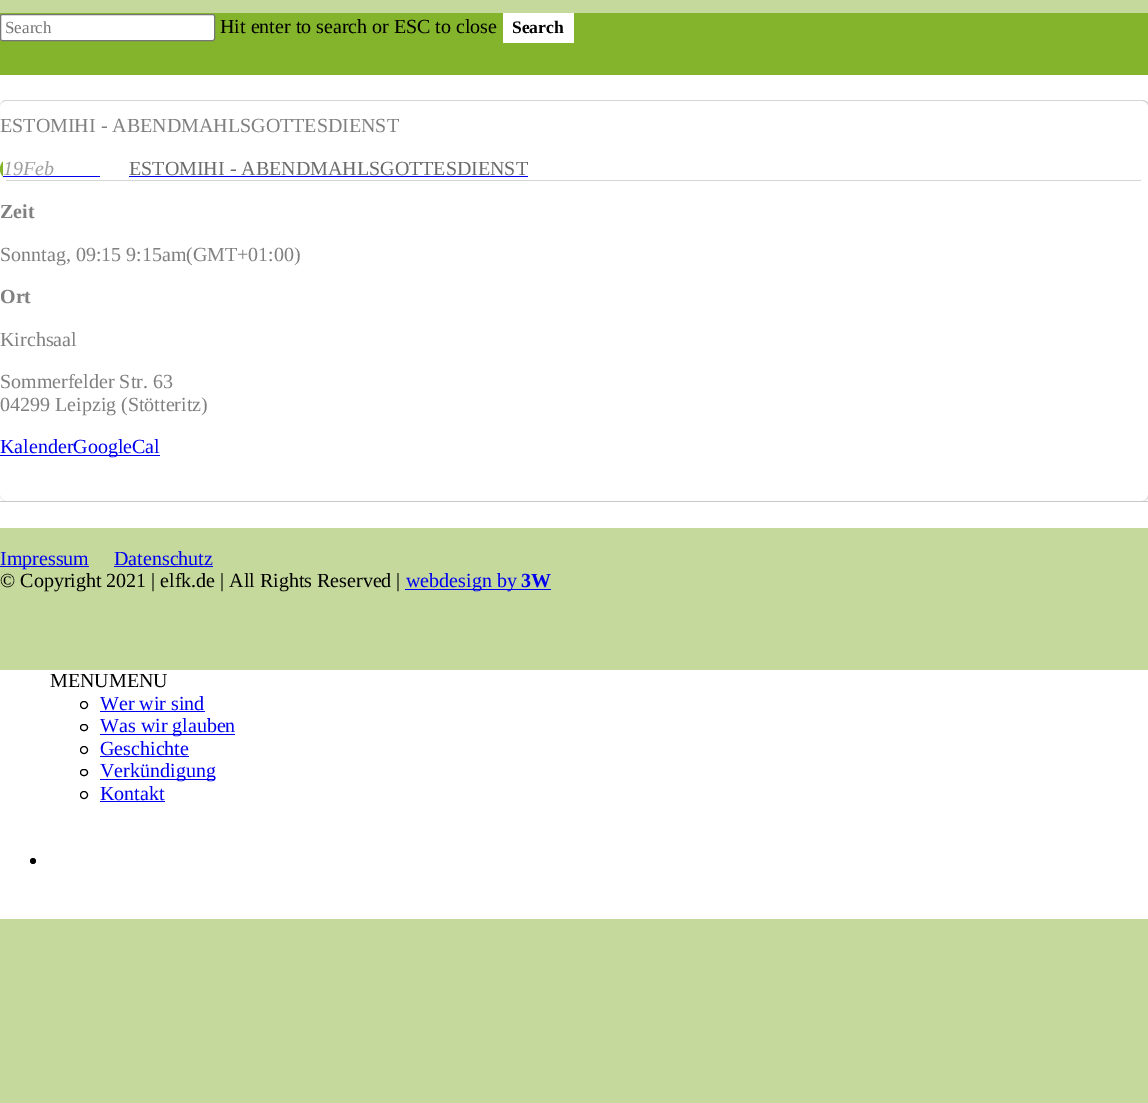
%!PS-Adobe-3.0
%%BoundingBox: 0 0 1148 1103
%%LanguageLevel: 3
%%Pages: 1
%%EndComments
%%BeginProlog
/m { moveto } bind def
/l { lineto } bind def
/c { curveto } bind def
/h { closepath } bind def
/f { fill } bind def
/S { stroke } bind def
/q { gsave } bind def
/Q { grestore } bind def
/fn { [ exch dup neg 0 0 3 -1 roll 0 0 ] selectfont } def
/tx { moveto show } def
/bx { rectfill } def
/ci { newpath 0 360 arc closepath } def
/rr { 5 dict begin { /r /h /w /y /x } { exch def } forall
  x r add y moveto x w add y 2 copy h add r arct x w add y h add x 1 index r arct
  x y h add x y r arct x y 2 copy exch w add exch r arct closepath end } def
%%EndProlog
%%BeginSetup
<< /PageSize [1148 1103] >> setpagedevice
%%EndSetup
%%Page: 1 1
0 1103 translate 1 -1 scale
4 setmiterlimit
0.776 0.851 0.612 setrgbcolor
0 0 1148 1103 bx
0.514 0.706 0.173 setrgbcolor
0 13 1148 62 bx
1 setgray
0.5 14.5 214 26 2 rr q f Q
0.463 setgray
S
/LiberationSerif-Regular 17 fn
0.459 setgray
(Search) 5 33 tx
/LiberationSerif-Regular 20 fn
0 setgray
(Hit enter to search or ESC to close) 220 33 tx
1 setgray
503 13 71 30 bx
/LiberationSerif-Bold 17.5 fn
0 setgray
(Search) 512 33 tx
1 setgray
0 75 1148 453 bx
0.784 setgray
0 501 1148 1 bx
0.835 setgray
6 100 m 1142 100 l 1146 100 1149 103 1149 106 c 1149 495 l 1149 498 1146 501 1142 501 c 6 501 l 3 501 0 498 0 495 c 0 106 l 0 103 3 100 6 100 c h 6 101 m 1142 101 l 1145 101 1148 103 1148 106 c 1148 495 l 1148 498 1145 501 1142 501 c 6 501 l 3 501 0 498 0 495 c 0 106 l 0 103 3 101 6 101 c h eofill
/LiberationSerif-Regular 20 fn
0.502 setgray
(ESTOMIHI - ABENDMAHLSGOTTESDIENST) 0 132 tx
0.835 setgray
6 180 1135 1 bx
/LiberationSerif-Italic 20 fn
0.624 setgray
(19Feb) 3 175 tx
0.51 0.706 0.173 setrgbcolor
3 176.5 m -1 172.5 -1 165.5 3 161.5 c h f
0 0 0.933 setrgbcolor
3 176 97 1 bx
/LiberationSerif-Regular 20 fn
0.42 setgray
(ESTOMIHI - ABENDMAHLSGOTTESDIENST) 129 175 tx
0 0 0.933 setrgbcolor
129 176 399 1 bx
/LiberationSerif-Bold 20 fn
0.502 setgray
(Zeit) 0 218 tx
/LiberationSerif-Regular 20 fn
(Sonntag, 09:15 9:15am\(GMT+01:00\)) 0 261 tx
/LiberationSerif-Bold 20 fn
(Ort) 0 303 tx
/LiberationSerif-Regular 20 fn
(Kirchsaal) 0 346 tx
(Sommerfelder Str. 63) 0 388 tx
(04299 Leipzig \(Stötteritz\)) 0 411 tx
0 0 0.933 setrgbcolor
0 455 160 1 bx
(KalenderGoogleCal) 0 453 tx
0 566 89 1 bx
(Impressum) 0 565 tx
(Datenschutz) 114 565 tx
114 566 99 1 bx
0 setgray
(© Copyright 2021 | elfk.de | All Rights Reserved |) 0 587 tx
0 0 0.933 setrgbcolor
405 589 146 1 bx
(webdesign by) 406 587 tx
/LiberationSerif-Bold 20 fn
(3W) 521 587 tx
1 setgray
0 670 1148 249 bx
/LiberationSerif-Regular 20 fn
0 setgray
(MENUMENU) 50 687 tx
84 705 3.5 ci S
0 0 0.933 setrgbcolor
(Wer wir sind) 100 710 tx
100 711 105 1 bx
0 setgray
80.5 724.5 7 6 3 rr S
0 0 0.933 setrgbcolor
100 734 135 1 bx
(Was wir glauben) 100 732 tx
0 setgray
84 750 3.5 ci S
0 0 0.933 setrgbcolor
(Geschichte) 100 755 tx
100 756 89 1 bx
0 setgray
80.5 769.5 7 6 3 rr S
0 0 0.933 setrgbcolor
100 779 115 1 bx
(Verkündigung) 100 777 tx
0 setgray
84 795 3.5 ci S
0 0 0.933 setrgbcolor
(Kontakt) 100 800 tx
100 801 65 1 bx
0 setgray
33 861 3 ci f
showpage
%%EOF
